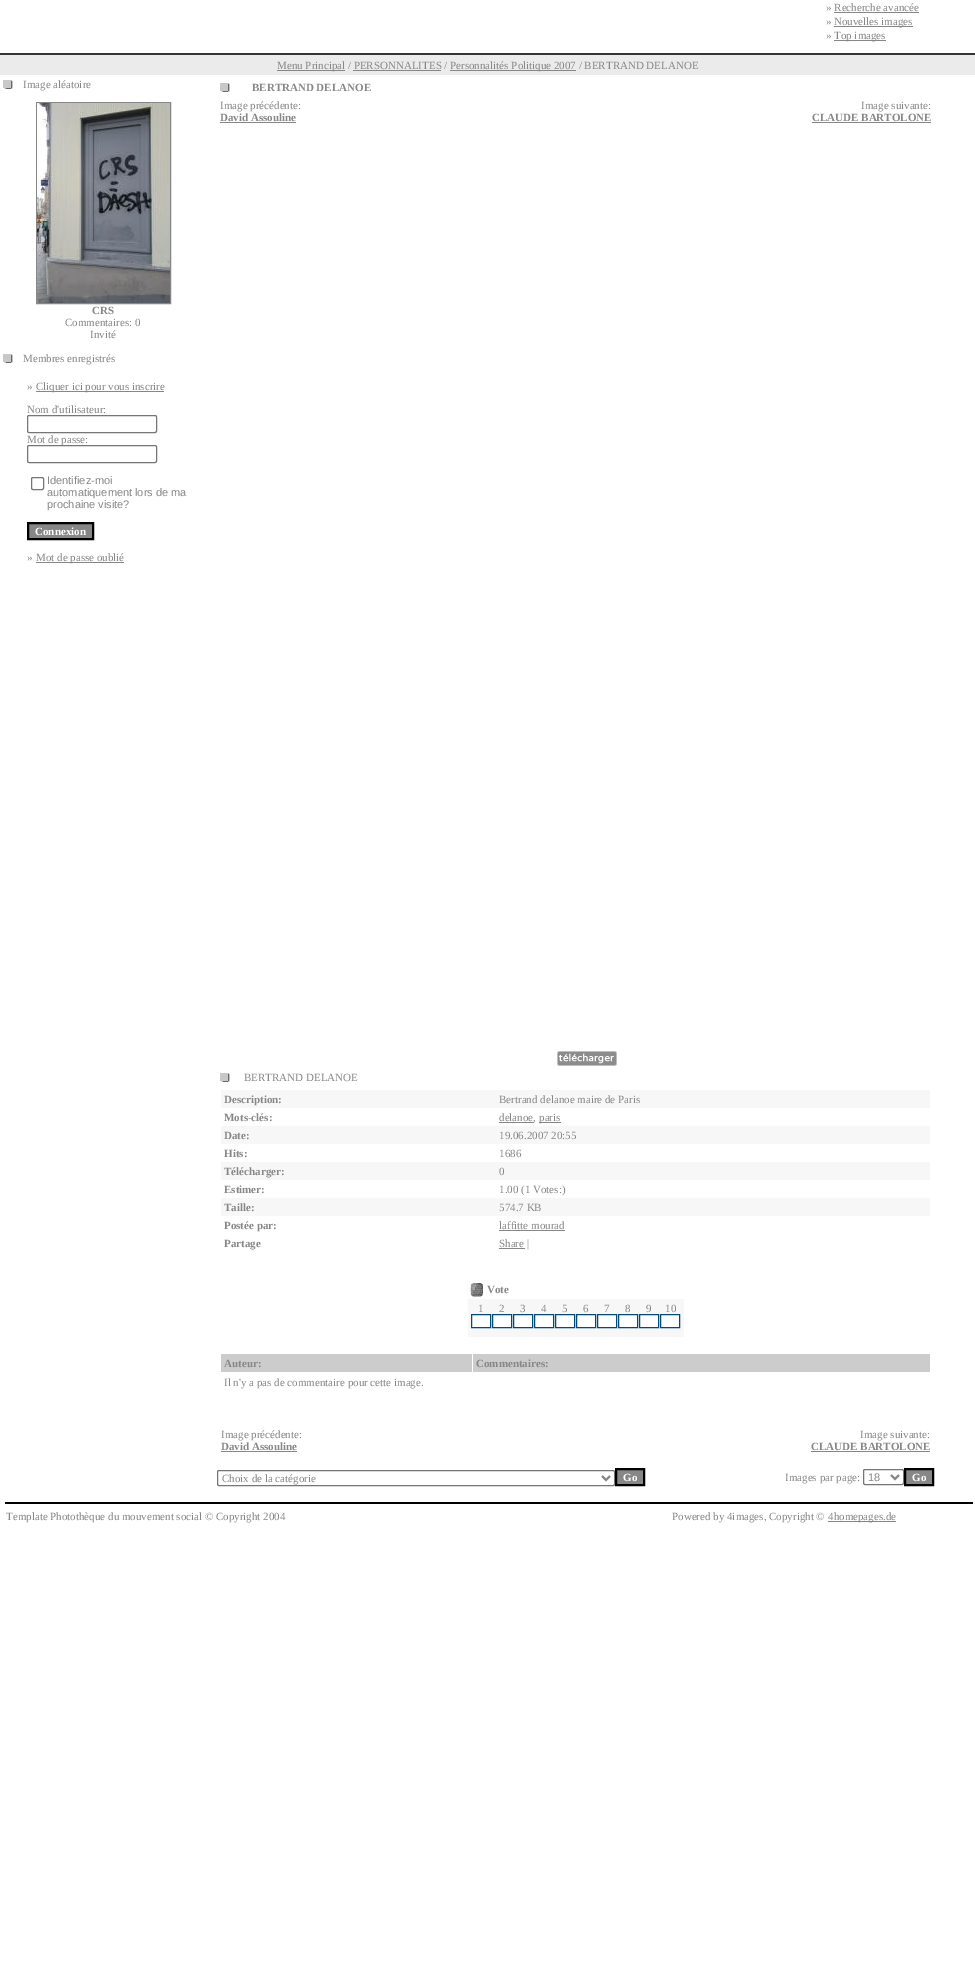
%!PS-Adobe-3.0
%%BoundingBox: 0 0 975 1970
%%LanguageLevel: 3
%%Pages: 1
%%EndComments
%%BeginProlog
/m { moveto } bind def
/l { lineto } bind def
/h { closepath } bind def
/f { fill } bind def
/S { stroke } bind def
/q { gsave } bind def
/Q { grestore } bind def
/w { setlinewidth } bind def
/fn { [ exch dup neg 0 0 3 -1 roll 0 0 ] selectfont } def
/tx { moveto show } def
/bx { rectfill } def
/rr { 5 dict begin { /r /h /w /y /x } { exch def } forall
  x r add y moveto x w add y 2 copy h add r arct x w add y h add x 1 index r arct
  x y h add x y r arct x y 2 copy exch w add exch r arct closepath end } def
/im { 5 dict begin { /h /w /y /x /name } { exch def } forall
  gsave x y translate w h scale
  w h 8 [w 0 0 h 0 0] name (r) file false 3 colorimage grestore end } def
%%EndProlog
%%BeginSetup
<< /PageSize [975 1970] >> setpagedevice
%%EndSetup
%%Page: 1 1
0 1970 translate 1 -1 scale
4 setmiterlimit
1 setgray
0 0 975 1970 bx
/LiberationSerif-Regular 11 fn
0.529 setgray
(» Recherche avancée) 826 11 tx
834 12 85 1 bx
(») 826 25 tx
834 26 79 1 bx
(Nouvelles images) 834 25 tx
(») 826 39 tx
834 40 52 1 bx
(Top images) 834 39 tx
0.2 setgray
0 53 975 2 bx
0.922 setgray
0 55 975 20 bx
0.529 setgray
277 70 68 1 bx
(Menu Principal / PERSONNALITES /) 277 69 tx
353 70 88 1 bx
450 70 126 1 bx
(Personnalités Politique 2007 / BERTRAND DELANOE) 450 69 tx
(image0.raw) 3 80 10 9 im
(Image aléatoire) 23 88 tx
36.5 102.5 134 201 rectstroke
(image1.raw) 37 103 133 200 im
/LiberationSerif-Bold 11 fn
(CRS) 92 314 tx
/LiberationSerif-Regular 11 fn
(Commentaires: 0) 65 326 tx
(Invité) 90 338 tx
(image0.raw) 3 354 10 9 im
(Membres enregistrés) 23 362 tx
(») 27 390 tx
36 391 128 1 bx
(Cliquer ici pour vous inscrire) 36 390 tx
(Nom d'utilisateur:) 27 413 tx
0.463 setgray
27.5 415.5 129 17 1.5 rr S
0.529 setgray
(Mot de passe:) 27 443 tx
1 setgray
27.5 445.5 129 17 1.5 rr q f Q
0.463 setgray
S
31.5 477.5 12 12 1.5 rr S
/LiberationSans-Regular 11 fn
0.529 setgray
(Identifiez-moi) 47 484 tx
(automatiquement lors de ma) 47 496 tx
(prochaine visite?) 47 508 tx
28 523 m 93 523 l 93 539 l 28 539 l h q f Q
0 setgray
2 w
S
/LiberationSerif-Bold 11 fn
1 setgray
(Connexion) 35 535 tx
/LiberationSerif-Regular 11 fn
0.529 setgray
(») 27 561 tx
36 562 88 1 bx
(Mot de passe oublié) 36 561 tx
(image0.raw) 220 83 10 9 im
/LiberationSerif-Bold 11 fn
(BERTRAND DELANOE) 252 91 tx
/LiberationSerif-Regular 11 fn
(Image précédente:) 220 109 tx
/LiberationSerif-Bold 11 fn
(David Assouline) 220 121 tx
220 122 76 1 bx
/LiberationSerif-Regular 11 fn
(Image suivante:) 861 109 tx
/LiberationSerif-Bold 11 fn
(CLAUDE BARTOLONE) 812 121 tx
812 122 119 1 bx
(image2.raw) 557 1051 60 15 im
(image0.raw) 220 1073 10 9 im
/LiberationSerif-Regular 11 fn
(BERTRAND DELANOE) 244 1081 tx
0.969 setgray
221 1090 709 18 bx
/LiberationSerif-Bold 11 fn
0.529 setgray
(Description:) 224 1103 tx
/LiberationSerif-Regular 11 fn
(Bertrand delanoe maire de Paris) 499 1103 tx
/LiberationSerif-Bold 11 fn
(Mots-clés:) 224 1121 tx
499 1122 35 1 bx
/LiberationSerif-Regular 11 fn
(delanoe,) 499 1121 tx
539 1122 22 1 bx
(paris) 539 1121 tx
0.969 setgray
221 1126 709 18 bx
/LiberationSerif-Bold 11 fn
0.529 setgray
(Date:) 224 1139 tx
/LiberationSerif-Regular 11 fn
(19.06.2007 20:55) 499 1139 tx
/LiberationSerif-Bold 11 fn
(Hits:) 224 1157 tx
/LiberationSerif-Regular 11 fn
(1686) 499 1157 tx
0.969 setgray
221 1162 709 18 bx
/LiberationSerif-Bold 11 fn
0.529 setgray
(Télécharger:) 224 1175 tx
/LiberationSerif-Regular 11 fn
(0) 499 1175 tx
/LiberationSerif-Bold 11 fn
(Estimer:) 224 1193 tx
/LiberationSerif-Regular 11 fn
(1.00 \(1 Votes:\)) 499 1193 tx
0.969 setgray
221 1198 709 18 bx
/LiberationSerif-Bold 11 fn
0.529 setgray
(Taille:) 224 1211 tx
/LiberationSerif-Regular 11 fn
(574.7 KB) 499 1211 tx
/LiberationSerif-Bold 11 fn
(Postée par:) 224 1229 tx
/LiberationSerif-Regular 11 fn
(laffitte mourad) 499 1229 tx
499 1230 66 1 bx
/LiberationSerif-Bold 11 fn
(Partage) 224 1247 tx
499 1248 26 1 bx
/LiberationSerif-Regular 11 fn
(Share |) 499 1247 tx
(image3.raw) 467 1280 17 18 im
/LiberationSerif-Bold 11 fn
(Vote) 487 1293 tx
(image4.raw) 467 1298 17 38 im
0.969 setgray
468 1299 216 38 bx
/LiberationSerif-Regular 11 fn
0.529 setgray
(1) 478 1312 tx
(2) 499 1312 tx
(3) 520 1312 tx
(4) 541 1312 tx
(5) 562 1312 tx
(6) 583 1312 tx
(7) 604 1312 tx
(8) 625 1312 tx
(9) 646 1312 tx
(10) 665 1312 tx
1 setgray
471.5 1314.5 m 490.5 1314.5 l 490.5 1327.5 l 471.5 1327.5 l h q f Q
0 0.298 0.459 setrgbcolor
1 w
S
1 setgray
492.5 1314.5 m 511.5 1314.5 l 511.5 1327.5 l 492.5 1327.5 l h q f Q
0 0.298 0.459 setrgbcolor
S
1 setgray
513.5 1314.5 m 532.5 1314.5 l 532.5 1327.5 l 513.5 1327.5 l h q f Q
0 0.298 0.459 setrgbcolor
S
1 setgray
534.5 1314.5 m 553.5 1314.5 l 553.5 1327.5 l 534.5 1327.5 l h q f Q
0 0.298 0.459 setrgbcolor
S
1 setgray
555.5 1314.5 m 574.5 1314.5 l 574.5 1327.5 l 555.5 1327.5 l h q f Q
0 0.298 0.459 setrgbcolor
S
1 setgray
576.5 1314.5 m 595.5 1314.5 l 595.5 1327.5 l 576.5 1327.5 l h q f Q
0 0.298 0.459 setrgbcolor
S
1 setgray
597.5 1314.5 m 616.5 1314.5 l 616.5 1327.5 l 597.5 1327.5 l h q f Q
0 0.298 0.459 setrgbcolor
S
1 setgray
618.5 1314.5 m 637.5 1314.5 l 637.5 1327.5 l 618.5 1327.5 l h q f Q
0 0.298 0.459 setrgbcolor
S
1 setgray
639.5 1314.5 m 658.5 1314.5 l 658.5 1327.5 l 639.5 1327.5 l h q f Q
0 0.298 0.459 setrgbcolor
S
1 setgray
660.5 1314.5 m 679.5 1314.5 l 679.5 1327.5 l 660.5 1327.5 l h q f Q
0 0.298 0.459 setrgbcolor
S
0.8 setgray
221 1354 251 18 bx
/LiberationSerif-Bold 11 fn
0.529 setgray
(Auteur:) 224 1367 tx
0.8 setgray
473 1354 457 18 bx
0.529 setgray
(Commentaires:) 476 1367 tx
/LiberationSerif-Regular 11 fn
(Il n'y a pas de commentaire pour cette image.) 224 1386 tx
(Image précédente:) 221 1438 tx
/LiberationSerif-Bold 11 fn
(David Assouline) 221 1450 tx
221 1451 76 1 bx
/LiberationSerif-Regular 11 fn
(Image suivante:) 860 1438 tx
/LiberationSerif-Bold 11 fn
(CLAUDE BARTOLONE) 811 1450 tx
811 1451 119 1 bx
0.463 setgray
217.5 1470.5 397 15 1.5 rr S
0.529 setgray
2 w
602 1476 m 606 1480 l 610 1476 l S
/LiberationSerif-Regular 11 fn
(Choix de la catégorie) 222 1482 tx
616 1469 m 644 1469 l 644 1485 l 616 1485 l h q f Q
0 setgray
S
/LiberationSerif-Bold 11 fn
1 setgray
(Go) 623 1481 tx
/LiberationSerif-Regular 11 fn
0.529 setgray
(Images par page:) 785 1481 tx
0.463 setgray
1 w
863.5 1469.5 40 15 1.5 rr S
0.529 setgray
2 w
891 1475 m 895 1479 l 899 1475 l S
/LiberationSans-Regular 11 fn
(18) 868 1481 tx
905 1469 m 933 1469 l 933 1485 l 905 1485 l h q f Q
0 setgray
S
/LiberationSerif-Bold 11 fn
1 setgray
(Go) 912 1481 tx
0 setgray
5 1502 968 2 bx
/LiberationSerif-Regular 11 fn
0.529 setgray
(Template Photothèque du mouvement social © Copyright 2004) 6 1520 tx
(Powered by 4images, Copyright ©) 672 1520 tx
828 1521 68 1 bx
(4homepages.de) 828 1520 tx
showpage
%%EOF
